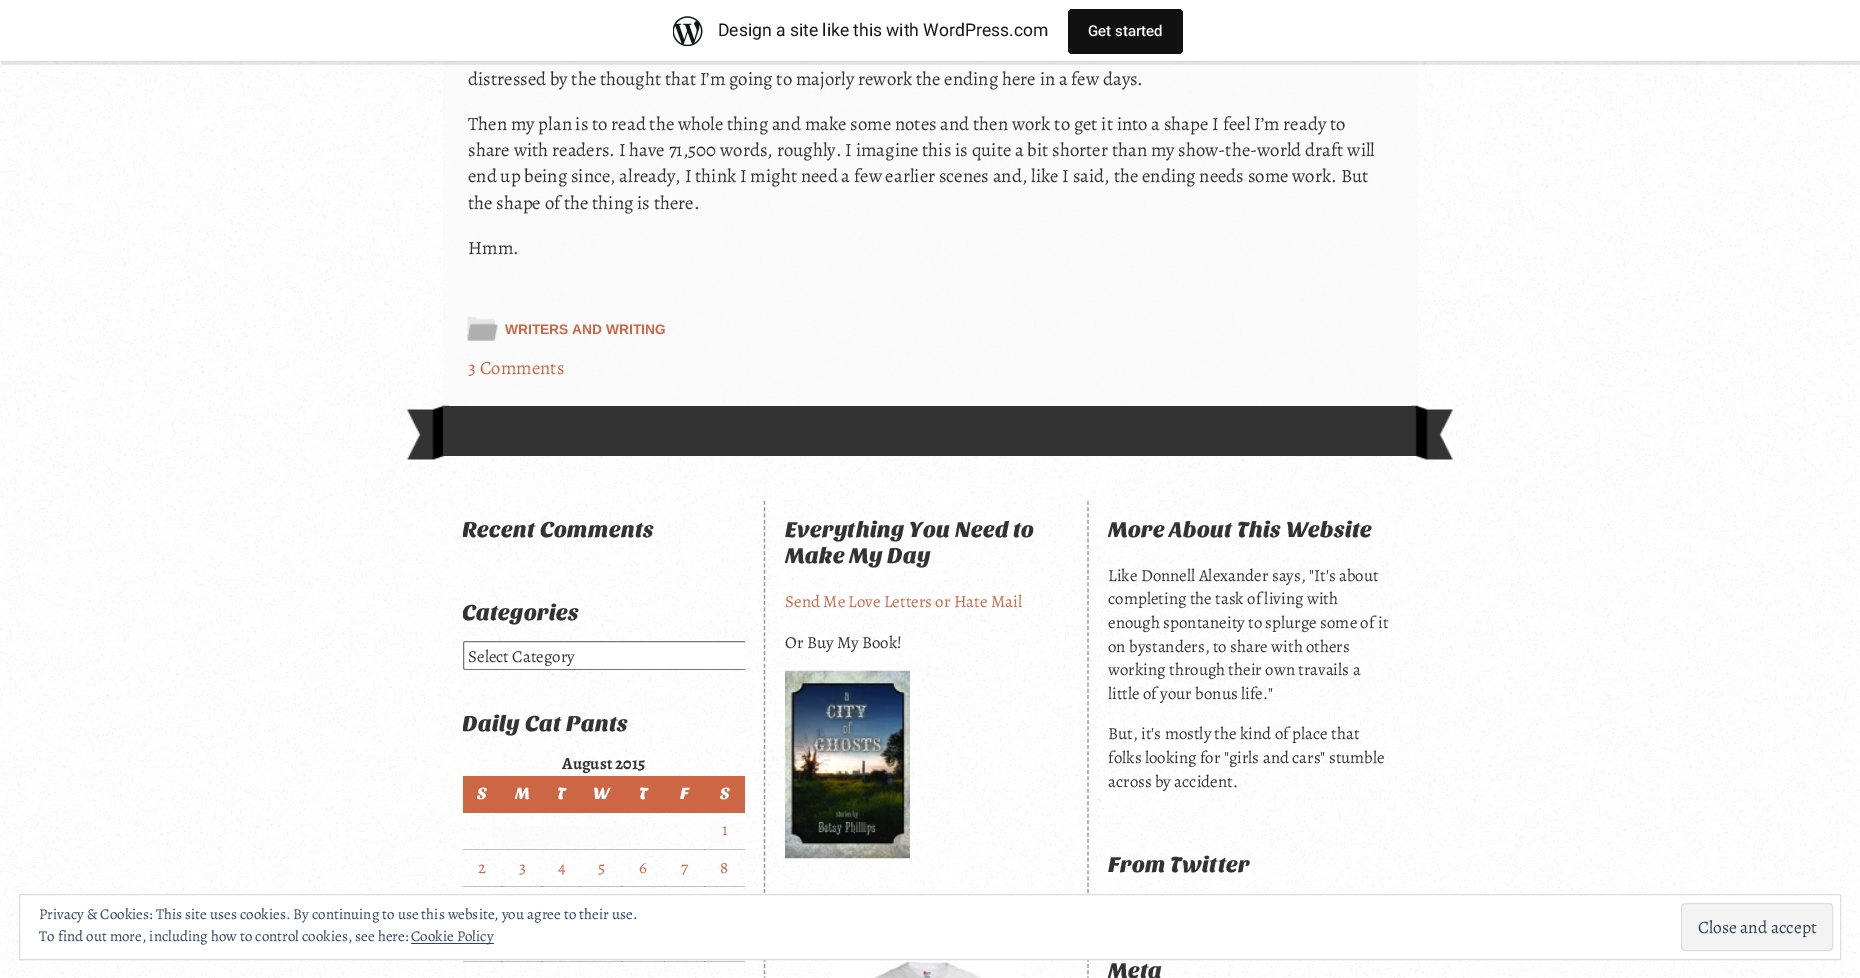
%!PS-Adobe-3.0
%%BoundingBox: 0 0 1860 978
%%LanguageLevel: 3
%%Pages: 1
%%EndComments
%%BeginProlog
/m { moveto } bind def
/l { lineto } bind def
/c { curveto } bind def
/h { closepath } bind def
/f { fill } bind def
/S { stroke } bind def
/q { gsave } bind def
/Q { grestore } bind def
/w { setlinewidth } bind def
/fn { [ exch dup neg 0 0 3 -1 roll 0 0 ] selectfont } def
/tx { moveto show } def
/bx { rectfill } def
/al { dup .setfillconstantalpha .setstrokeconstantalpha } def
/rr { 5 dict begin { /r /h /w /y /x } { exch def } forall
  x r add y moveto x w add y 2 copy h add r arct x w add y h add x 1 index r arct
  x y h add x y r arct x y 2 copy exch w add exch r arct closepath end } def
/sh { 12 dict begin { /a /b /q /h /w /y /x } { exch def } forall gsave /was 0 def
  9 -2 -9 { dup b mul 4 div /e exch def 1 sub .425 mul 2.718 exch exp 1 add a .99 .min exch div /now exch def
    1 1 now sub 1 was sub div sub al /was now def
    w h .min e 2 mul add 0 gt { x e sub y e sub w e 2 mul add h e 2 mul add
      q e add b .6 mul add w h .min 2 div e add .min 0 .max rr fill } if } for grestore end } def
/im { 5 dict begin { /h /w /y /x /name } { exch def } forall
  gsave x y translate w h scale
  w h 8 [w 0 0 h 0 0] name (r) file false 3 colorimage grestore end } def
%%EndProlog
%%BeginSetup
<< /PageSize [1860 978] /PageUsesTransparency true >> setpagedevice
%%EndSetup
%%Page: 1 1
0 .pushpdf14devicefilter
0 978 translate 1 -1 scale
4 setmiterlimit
1 setgray
0 0 1860 978 bx
(image0.raw) 0 61 1860 917 im
0.75 al
0.98 setgray
443 61 975 345 bx
1 al
0 setgray
0 1 1860 62 0 1 0.05 sh
0.08 al
1 61 m 1 65 l 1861 65 l 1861 4 l 1860 4 l 1860 61 l h f
1 al
1 setgray
0 0 1860 61 bx
(image1.raw) 673 16 30 30 im
/Roboto-Regular 17.5 fn
0.09 setgray
(Design a site like this with WordPress.com) 718 36 tx
0.067 setgray
1068 9 115 45 4 rr f
/Roboto-Medium 15 fn
0.965 0.969 0.969 setrgbcolor
(Get started) 1088 36 tx
/Alegreya-Regular 18.75 fn
0.2 setgray
(distressed by the thought that I’m going to majorly rework the ending here in a few days.) 468 85 tx
(Then my plan is to read the whole thing and make some notes and then work to get it into a shape I feel I’m ready to) 468 130 tx
(share with readers. I have 71,500 words, roughly. I imagine this is quite a bit shorter than my show-the-world draft will) 468 156 tx
(end up being since, already, I think I might need a few earlier scenes and, like I said, the ending needs some work. But) 468 182 tx
(the shape of the thing is there.) 468 209 tx
(Hmm.) 468 254 tx
(image2.raw) 467 317 31 24 im
/LiberationSans-Bold 13.75 fn
0.8 0.4 0.267 setrgbcolor
(WRITERS AND WRITING) 505 334 tx
/Alegreya-Regular 18.75 fn
(3 Comments) 468 374 tx
(image3.raw) 407 405 42 55 im
0.2 setgray
443 406 975 50 bx
(image4.raw) 1411 405 42 55 im
0.6 setgray
1.2 w
[3.75 2.51] 0 setdash
764.5 501 m 764.5 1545 l S
q
463 501 282 58 rectclip
/SansitaOne-Regular 22.5 fn
0.2 setgray
(Recent Comments) 462 537 tx
Q
q
463 584 282 86 rectclip
/SansitaOne-Regular 22.5 fn
0.2 setgray
(Categories) 462 620 tx
Q
1 setgray
465.5 641 m 745 641 l 745 670 l 465.5 670 l 464 670 463 669 463 667.5 c 463 643.5 l 463 642 464 641 465.5 641 c h f
q
463 584 282 86 rectclip
0.463 setgray
1 w
[] 0 setdash
463.5 641.5 437 28 2 rr S
Q
/Alegreya-Regular 16.9 fn
0.2 setgray
(Select Category) 468 662 tx
q
463 695 282 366 rectclip
/SansitaOne-Regular 22.5 fn
(Daily Cat Pants) 462 731 tx
Q
/Alegreya-Bold 16.9 fn
(August 2015) 562 769 tx
0.8 0.4 0.267 setrgbcolor
463 776 282 37 bx
/SansitaOne-Regular 16.9 fn
1 setgray
(S) 477 799 tx
(M) 515 799 tx
(T) 557 799 tx
(W) 593 799 tx
(T) 639 799 tx
(F) 680 799 tx
(S) 720 799 tx
0.5 al
0.98 setgray
494 826 136 21 bx
0.3 al
0.2 setgray
704 849 41 1 bx
463 849 242 1 bx
0.5 al
0.98 setgray
709 822 16 25 bx
/Alegreya-Regular 16.9 fn
1 al
0.8 0.4 0.267 setrgbcolor
(1) 722 835 tx
0.3 al
0.2 setgray
704 886 41 1 bx
664 886 41 1 bx
621 886 44 1 bx
580 886 43 1 bx
541 886 40 1 bx
501 886 42 1 bx
463 886 40 1 bx
1 al
0.8 0.4 0.267 setrgbcolor
(2) 478 873 tx
(3) 519 873 tx
(4) 558 873 tx
(5) 598 873 tx
0.5 al
0.98 setgray
650 856 1 1 bx
1 al
0.8 0.4 0.267 setrgbcolor
(6) 639 873 tx
0.5 al
0.98 setgray
693 877 1 1 bx
1 al
0.8 0.4 0.267 setrgbcolor
(7) 681 873 tx
0.5 al
0.98 setgray
719 866 1 1 bx
1 al
0.8 0.4 0.267 setrgbcolor
(8) 720 873 tx
0.5 al
0.98 setgray
503 891 5 1 bx
0.3 al
0.2 setgray
704 961 41 1 bx
664 961 41 1 bx
621 961 44 1 bx
580 961 43 1 bx
541 961 40 1 bx
501 961 42 1 bx
463 961 40 1 bx
0.5 al
0.98 setgray
609 966 1 1 bx
524 971 1 1 bx
464 976 1 1 bx
1 al
0.6 setgray
1088 501 m 1088 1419 l S
/SansitaOne-Regular 22.5 fn
0.2 setgray
(Everything You Need to) 785 537 tx
(Make My Day) 785 563 tx
/Alegreya-Regular 16.9 fn
0.8 0.4 0.267 setrgbcolor
(Send Me Love Letters or Hate Mail) 785 607 tx
0.2 setgray
(Or Buy My Book!) 785 648 tx
(image5.raw) 785 670 125 189 im
(image6.raw) 833 960 187 18 im
/SansitaOne-Regular 22.5 fn
(More About This Website) 1108 537 tx
/Alegreya-Regular 16.9 fn
(Like Donnell Alexander says, "It's about) 1108 581 tx
(completing the task of living with) 1108 604 tx
(enough spontaneity to splurge some of it) 1108 628 tx
(on bystanders, to share with others) 1108 652 tx
(working through their own travails a) 1108 675 tx
(little of your bonus life.") 1108 699 tx
(But, it's mostly the kind of place that) 1108 739 tx
(folks looking for "girls and cars" stumble) 1108 763 tx
(across by accident.) 1108 787 tx
/SansitaOne-Regular 22.5 fn
(From Twitter) 1108 872 tx
(Meta) 1108 978 tx
1 setgray
19.5 894.5 m 1840.5 894.5 l 1840.5 959.5 l 19.5 959.5 l h q f Q
0.871 setgray
1 w
[] 0 setdash
S
/Alegreya-Regular 15 fn
0.18 0.267 0.404 setrgbcolor
(Privacy & Cookies: This site uses cookies. By continuing to use this website, you agree to their use.) 39 919 tx
(To find out more, including how to control cookies, see here:) 39 941 tx
411 943 83 1 bx
(Cookie Policy) 411 941 tx
0.953 setgray
1681.5 903.5 151 47 3.5 rr q f Q
0.871 setgray
S
/Alegreya-Regular 17.5 fn
0.18 0.267 0.325 setrgbcolor
(Close and accept) 1698 933 tx
.poppdf14devicefilter showpage
%%EOF
